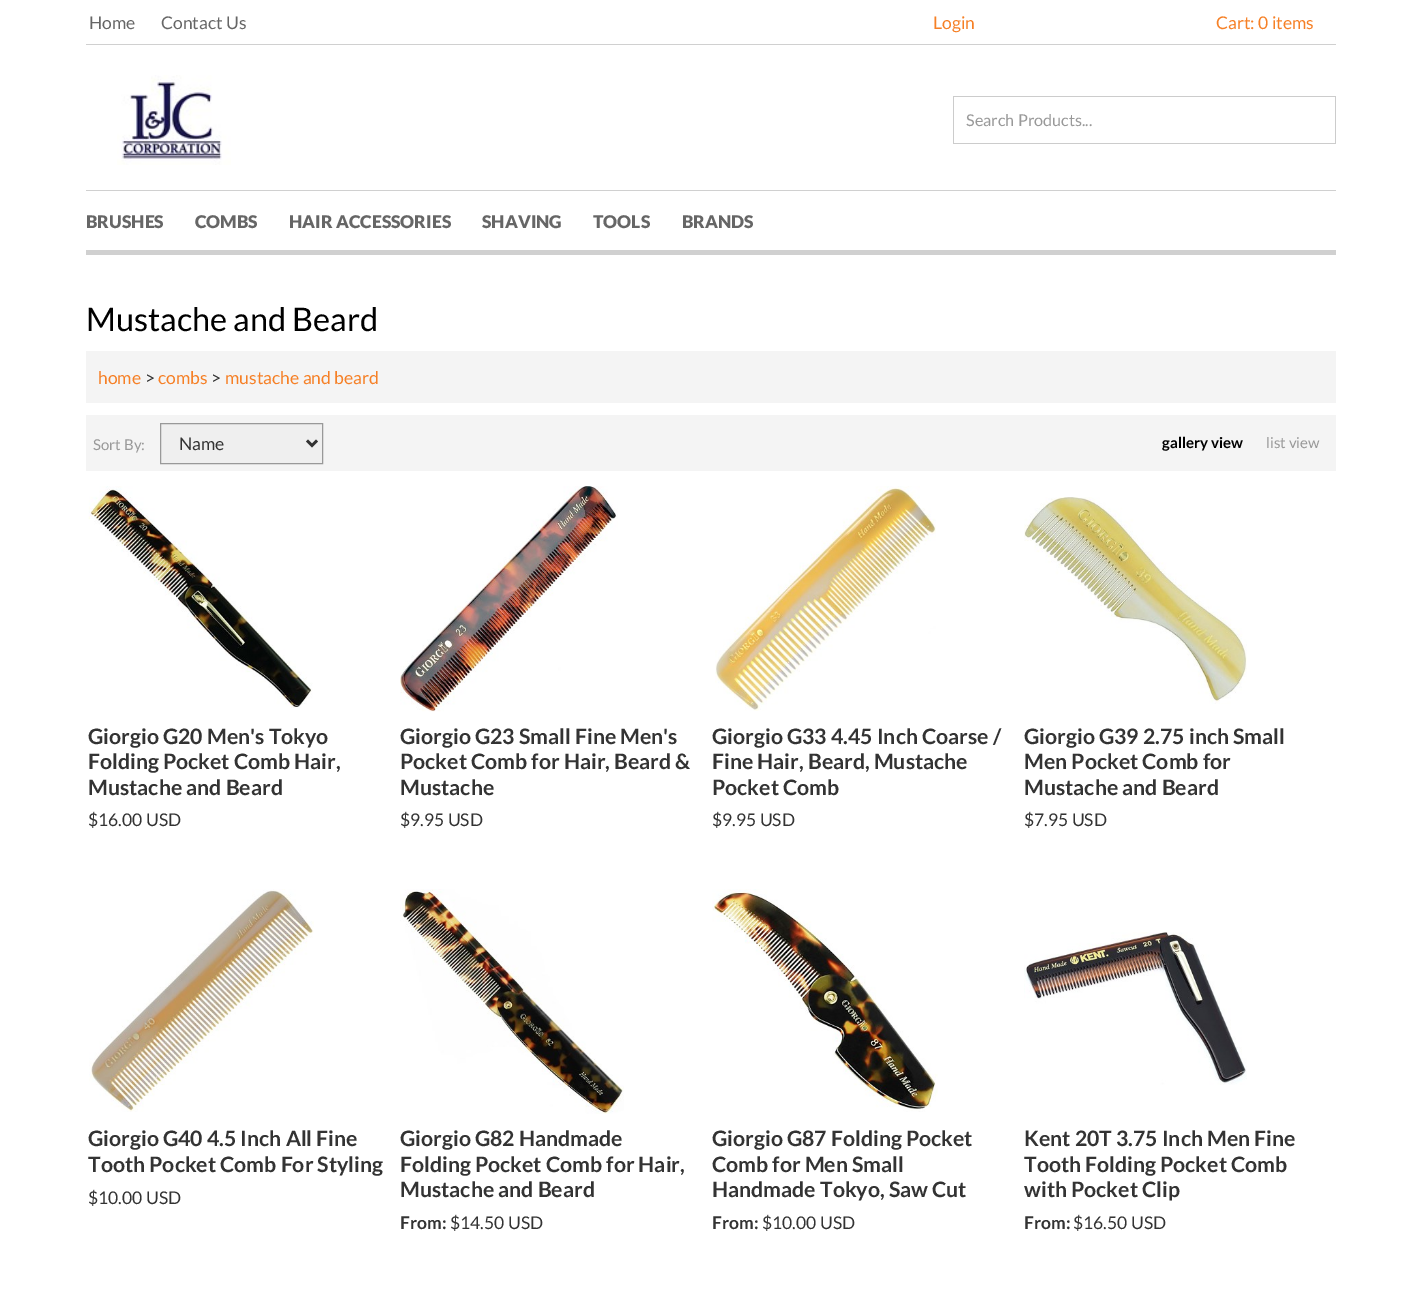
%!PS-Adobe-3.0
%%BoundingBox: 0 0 1421 1290
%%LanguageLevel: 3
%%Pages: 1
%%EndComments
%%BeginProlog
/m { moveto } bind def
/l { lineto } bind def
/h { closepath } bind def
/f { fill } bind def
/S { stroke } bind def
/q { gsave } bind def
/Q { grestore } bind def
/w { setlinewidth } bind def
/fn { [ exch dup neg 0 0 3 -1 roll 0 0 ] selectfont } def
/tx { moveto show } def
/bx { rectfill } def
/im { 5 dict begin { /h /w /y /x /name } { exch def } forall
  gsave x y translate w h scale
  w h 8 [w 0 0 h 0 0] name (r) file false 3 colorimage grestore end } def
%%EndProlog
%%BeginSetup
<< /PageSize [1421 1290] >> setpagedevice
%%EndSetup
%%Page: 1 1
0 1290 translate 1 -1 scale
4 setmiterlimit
1 setgray
0 0 1421 1290 bx
0.816 setgray
86 44 1250 1 bx
/Lato-Regular 17.5 fn
0.4 setgray
(Home) 89 29 tx
(Contact Us) 161 29 tx
0.965 0.502 0.149 setrgbcolor
(Login) 933 29 tx
(Cart: 0 items) 1216 29 tx
0.816 setgray
86 190 1250 1 bx
(image0.raw) 117 75 114 90 im
0.8 setgray
953 96 383 1 bx
953 143 357 1 bx
953 96 1 48 bx
/Lato-Regular 16.25 fn
0.6 setgray
(Search Products...) 966 126 tx
0.8 setgray
1335 96 1 48 bx
1310 143 26 1 bx
0.816 setgray
86 250 1250 5 bx
/Lato-Black 17.5 fn
0.4 setgray
(BRUSHES) 86 228 tx
(COMBS) 195 228 tx
(HAIR ACCESSORIES) 289 228 tx
(SHAVING) 482 228 tx
(TOOLS) 593 228 tx
(BRANDS) 682 228 tx
/Lato-Regular 32.5 fn
0 setgray
(Mustache and Beard) 86 331 tx
0.957 setgray
86 351 1250 52 bx
/Lato-Regular 17.5 fn
0.965 0.502 0.149 setrgbcolor
(home) 98 384 tx
0.2 setgray
(>) 145 384 tx
0.965 0.502 0.149 setrgbcolor
(combs) 158 384 tx
0.2 setgray
(>) 211 384 tx
0.965 0.502 0.149 setrgbcolor
(mustache and beard) 225 384 tx
0.957 setgray
86 415 1250 56 bx
/Lato-Regular 15 fn
0.6 setgray
(Sort By:) 93 450 tx
0.937 setgray
160.5 423.5 m 322.5 423.5 l 322.5 463.5 l 160.5 463.5 l h q f Q
0.6 setgray
S
0.2 setgray
2.5 w
307 440.5 m 312 445.5 l 317 440.5 l S
/Lato-Regular 17.5 fn
(Name) 179 450 tx
/Lato-Bold 15 fn
0 setgray
(gallery view) 1162 448 tx
/Lato-Regular 15 fn
0.6 setgray
(list view) 1266 448 tx
(image1.raw) 88 486 225 222 im
/Lato-Bold 21.25 fn
0.2 setgray
(Giorgio G20 Men's Tokyo) 88 744 tx
(Folding Pocket Comb Hair,) 88 769 tx
(Mustache and Beard) 88 795 tx
/Lato-Regular 17.5 fn
($16.00 USD) 88 826 tx
(image2.raw) 400 486 218 226 im
/Lato-Bold 21.25 fn
(Giorgio G23 Small Fine Men's) 400 744 tx
(Pocket Comb for Hair, Beard &) 400 769 tx
(Mustache) 400 795 tx
/Lato-Regular 17.5 fn
($9.95 USD) 400 826 tx
(image3.raw) 715 486 221 225 im
/Lato-Bold 21.25 fn
(Giorgio G33 4.45 Inch Coarse /) 712 744 tx
(Fine Hair, Beard, Mustache) 712 769 tx
(Pocket Comb) 712 795 tx
/Lato-Regular 17.5 fn
($9.95 USD) 712 826 tx
(image4.raw) 1024 497 223 207 im
/Lato-Bold 21.25 fn
(Giorgio G39 2.75 inch Small) 1024 744 tx
(Men Pocket Comb for) 1024 769 tx
(Mustache and Beard) 1024 795 tx
/Lato-Regular 17.5 fn
($7.95 USD) 1024 826 tx
(image5.raw) 89 889 225 223 im
/Lato-Bold 21.25 fn
(Giorgio G40 4.5 Inch All Fine) 88 1146 tx
(Tooth Pocket Comb For Styling) 88 1172 tx
/Lato-Regular 17.5 fn
($10.00 USD) 88 1204 tx
(image6.raw) 400 889 224 225 im
/Lato-Bold 21.25 fn
(Giorgio G82 Handmade) 400 1146 tx
(Folding Pocket Comb for Hair,) 400 1172 tx
(Mustache and Beard) 400 1197 tx
/Lato-Bold 17.5 fn
(From:) 400 1229 tx
/Lato-Regular 17.5 fn
($14.50 USD) 450 1229 tx
(image7.raw) 712 889 226 223 im
/Lato-Bold 21.25 fn
(Giorgio G87 Folding Pocket) 712 1146 tx
(Comb for Men Small) 712 1172 tx
(Handmade Tokyo, Saw Cut) 712 1197 tx
/Lato-Bold 17.5 fn
(From:) 712 1229 tx
/Lato-Regular 17.5 fn
($10.00 USD) 762 1229 tx
(image8.raw) 1024 932 223 153 im
/Lato-Bold 21.25 fn
(Kent 20T 3.75 Inch Men Fine) 1024 1146 tx
(Tooth Folding Pocket Comb) 1024 1172 tx
(with Pocket Clip) 1024 1197 tx
/Lato-Bold 17.5 fn
(From:) 1024 1229 tx
/Lato-Regular 17.5 fn
($16.50 USD) 1073 1229 tx
showpage
%%EOF
